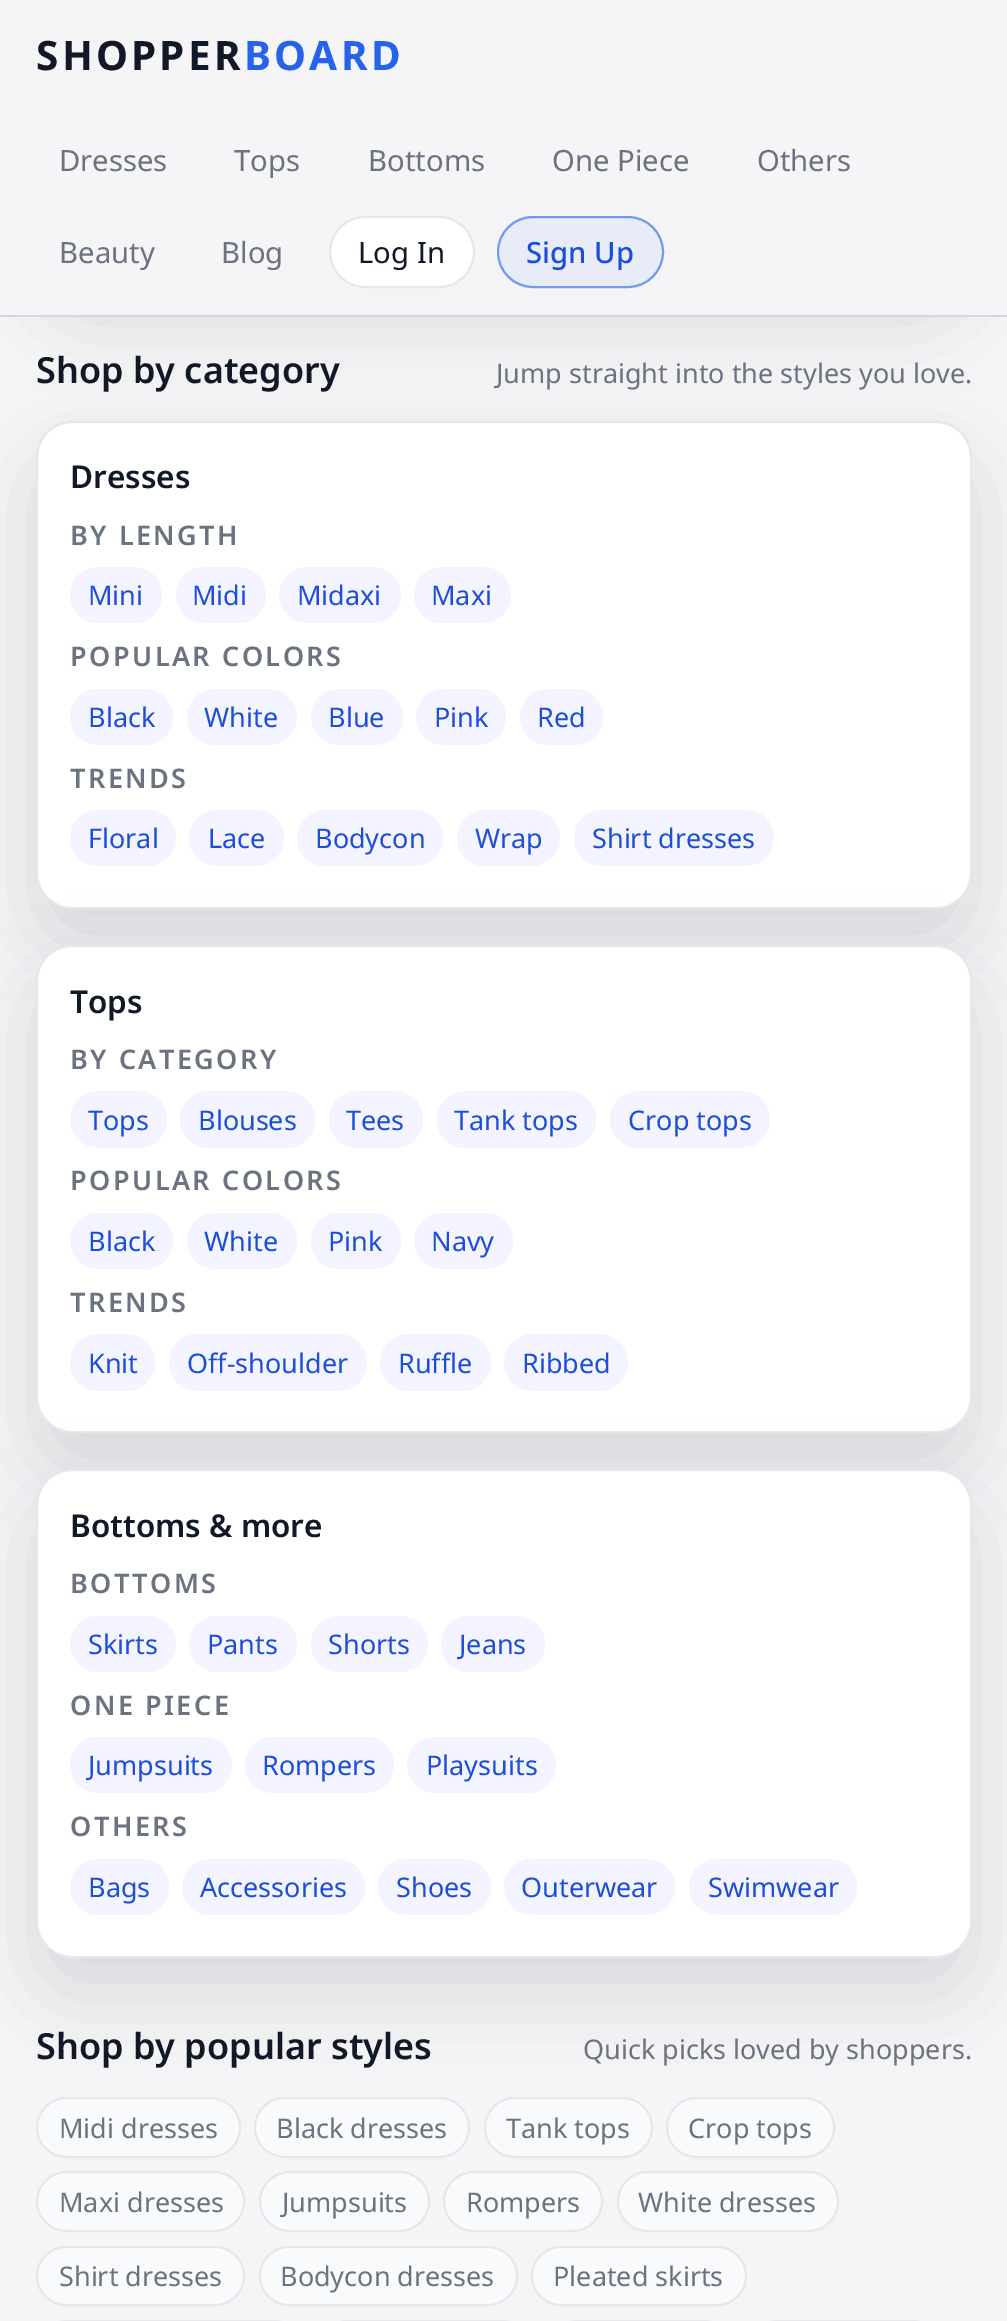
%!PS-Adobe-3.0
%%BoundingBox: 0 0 1007 2321
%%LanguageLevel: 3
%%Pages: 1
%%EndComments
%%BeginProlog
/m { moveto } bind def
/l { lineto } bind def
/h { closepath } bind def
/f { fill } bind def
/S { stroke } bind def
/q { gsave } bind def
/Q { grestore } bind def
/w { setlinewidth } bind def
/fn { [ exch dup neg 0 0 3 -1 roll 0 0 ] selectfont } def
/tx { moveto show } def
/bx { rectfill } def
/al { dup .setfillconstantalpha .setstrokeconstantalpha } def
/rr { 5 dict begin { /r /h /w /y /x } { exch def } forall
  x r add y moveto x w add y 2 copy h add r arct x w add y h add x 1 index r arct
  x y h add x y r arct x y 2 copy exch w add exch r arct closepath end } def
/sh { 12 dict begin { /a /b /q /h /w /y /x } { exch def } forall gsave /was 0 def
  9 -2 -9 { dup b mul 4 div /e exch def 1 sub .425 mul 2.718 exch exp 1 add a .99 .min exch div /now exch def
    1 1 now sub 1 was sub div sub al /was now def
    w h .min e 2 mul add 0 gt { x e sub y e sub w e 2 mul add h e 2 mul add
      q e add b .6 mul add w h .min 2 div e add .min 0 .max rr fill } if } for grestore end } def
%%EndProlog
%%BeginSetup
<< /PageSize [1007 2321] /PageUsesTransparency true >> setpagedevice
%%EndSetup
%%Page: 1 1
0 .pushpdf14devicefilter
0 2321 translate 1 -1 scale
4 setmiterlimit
0.961 0.961 0.969 setrgbcolor
0 0 1007 2321 bx
0.059 0.09 0.165 setrgbcolor
36 -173 936 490 54 39.5 0.12 sh
q
36 -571 936 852 54 rr clip newpath
q 38 0 m 970 0 l 970 279 l 38 279 l h clip newpath 38 -569 translate 1260 1260 scale
<< /ShadingType 3 /ColorSpace /DeviceRGB /Coords [0 0 0 0 0 1] /Extend [true true] /Function << /FunctionType 3 /Domain [0 1] /Functions [<< /FunctionType 2 /Domain [0 1] /C0 [0.878 0.949 0.996] /C1 [0.937 0.965 1] /N 1 >> << /FunctionType 2 /Domain [0 1] /C0 [0.937 0.965 1] /C1 [0.961 0.961 0.969] /N 1 >>] /Bounds [0.35] /Encode [0 1 0 1] >> >> shfill Q
Q
0.898 0.906 0.922 setrgbcolor
2 w
37 -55 934 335 53 rr S
0.145 0.388 0.922 setrgbcolor
88 -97 369 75 37.5 29 0.45 sh
0.86 al
1 setgray
89 -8 830 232 40 rr f
1 al
0.878 0.906 1 setrgbcolor
89 -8 830 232 40 rr S
0.96 al
0.961 0.961 0.969 setrgbcolor
0 0 1007 315 bx
1 al
0.835 0.847 0.871 setrgbcolor
0 315 1007 2 bx
/NotoSans-Bold 40.5 fn
0.067 0.094 0.153 setrgbcolor
36 70 m 3.25 0 (SHOPPER) ashow
0.145 0.388 0.922 setrgbcolor
244 70 m 3.25 0 (BOARD) ashow
/NotoSans-Regular 29.25 fn
0.42 0.447 0.502 setrgbcolor
(Dresses) 59 171 tx
(Tops) 234 171 tx
(Bottoms) 368 171 tx
(One Piece) 552 171 tx
(Others) 757 171 tx
(Beauty) 59 263 tx
(Blog) 221 263 tx
1 setgray
330 217 144 70 35 rr q f Q
0.898 0.906 0.922 setrgbcolor
S
0.067 0.094 0.153 setrgbcolor
(Log In) 358 263 tx
0.91 0.925 0.965 setrgbcolor
497 216 167 72 36 rr f
0.6 al
0.145 0.388 0.922 setrgbcolor
498 217 165 70 35 rr S
/NotoSans-Medium 29.25 fn
1 al
0.114 0.306 0.847 setrgbcolor
(Sign Up) 526 263 tx
/NotoSans-SemiBold 36 fn
0.067 0.094 0.153 setrgbcolor
(Shop by category) 36 383 tx
/NotoSans-Regular 27 fn
0.42 0.447 0.502 setrgbcolor
(Jump straight into the styles you love.) 496 383 tx
0.059 0.09 0.165 setrgbcolor
36 457 936 488 36 39.5 0.12 sh
1 setgray
37 422 934 486 35 rr q f Q
0.898 0.906 0.922 setrgbcolor
S
/NotoSans-SemiBold 31.5 fn
0.067 0.094 0.153 setrgbcolor
(Dresses) 70 488 tx
/NotoSans-SemiBold 27 fn
0.42 0.447 0.502 setrgbcolor
70 545 m 2.5 0 (BY LENGTH) ashow
0.953 0.957 1 setrgbcolor
70 567 92 56 28 rr f
/NotoSans-Regular 27 fn
0.114 0.306 0.847 setrgbcolor
(Mini) 88 605 tx
0.953 0.957 1 setrgbcolor
176 567 90 56 28 rr f
0.114 0.306 0.847 setrgbcolor
(Midi) 192 605 tx
0.953 0.957 1 setrgbcolor
279 567 122 56 28 rr f
0.114 0.306 0.847 setrgbcolor
(Midaxi) 297 605 tx
0.953 0.957 1 setrgbcolor
414 567 97 56 28 rr f
0.114 0.306 0.847 setrgbcolor
(Maxi) 431 605 tx
/NotoSans-SemiBold 27 fn
0.42 0.447 0.502 setrgbcolor
70 666 m 2.5 0 (POPULAR COLORS) ashow
0.953 0.957 1 setrgbcolor
70 689 103 56 28 rr f
/NotoSans-Regular 27 fn
0.114 0.306 0.847 setrgbcolor
(Black) 88 727 tx
0.953 0.957 1 setrgbcolor
187 689 110 56 28 rr f
0.114 0.306 0.847 setrgbcolor
(White) 204 727 tx
0.953 0.957 1 setrgbcolor
311 689 92 56 28 rr f
0.114 0.306 0.847 setrgbcolor
(Blue) 328 727 tx
0.953 0.957 1 setrgbcolor
416 689 90 56 28 rr f
0.114 0.306 0.847 setrgbcolor
(Pink) 434 727 tx
0.953 0.957 1 setrgbcolor
520 689 83 56 28 rr f
0.114 0.306 0.847 setrgbcolor
(Red) 537 727 tx
/NotoSans-SemiBold 27 fn
0.42 0.447 0.502 setrgbcolor
70 788 m 2.5 0 (TRENDS) ashow
0.953 0.957 1 setrgbcolor
70 810 106 56 28 rr f
/NotoSans-Regular 27 fn
0.114 0.306 0.847 setrgbcolor
(Floral) 88 848 tx
0.953 0.957 1 setrgbcolor
189 810 95 56 28 rr f
0.114 0.306 0.847 setrgbcolor
(Lace) 208 848 tx
0.953 0.957 1 setrgbcolor
297 810 146 56 28 rr f
0.114 0.306 0.847 setrgbcolor
(Bodycon) 315 848 tx
0.953 0.957 1 setrgbcolor
457 810 103 56 28 rr f
0.114 0.306 0.847 setrgbcolor
(Wrap) 475 848 tx
0.953 0.957 1 setrgbcolor
574 810 200 56 28 rr f
0.114 0.306 0.847 setrgbcolor
(Shirt dresses) 592 848 tx
0.059 0.09 0.165 setrgbcolor
36 981 936 488 36 39.5 0.12 sh
1 setgray
37 946 934 486 35 rr q f Q
0.898 0.906 0.922 setrgbcolor
S
/NotoSans-SemiBold 31.5 fn
0.067 0.094 0.153 setrgbcolor
(Tops) 70 1013 tx
/NotoSans-SemiBold 27 fn
0.42 0.447 0.502 setrgbcolor
70 1069 m 2.5 0 (BY CATEGORY) ashow
0.953 0.957 1 setrgbcolor
70 1091 97 57 28.5 rr f
/NotoSans-Regular 27 fn
0.114 0.306 0.847 setrgbcolor
(Tops) 88 1130 tx
0.953 0.957 1 setrgbcolor
180 1091 135 57 28.5 rr f
0.114 0.306 0.847 setrgbcolor
(Blouses) 198 1130 tx
0.953 0.957 1 setrgbcolor
329 1091 94 57 28.5 rr f
0.114 0.306 0.847 setrgbcolor
(Tees) 346 1130 tx
0.953 0.957 1 setrgbcolor
437 1091 159 57 28.5 rr f
0.114 0.306 0.847 setrgbcolor
(Tank tops) 454 1130 tx
0.953 0.957 1 setrgbcolor
610 1091 160 57 28.5 rr f
0.114 0.306 0.847 setrgbcolor
(Crop tops) 628 1130 tx
/NotoSans-SemiBold 27 fn
0.42 0.447 0.502 setrgbcolor
70 1190 m 2.5 0 (POPULAR COLORS) ashow
0.953 0.957 1 setrgbcolor
70 1213 103 56 28 rr f
/NotoSans-Regular 27 fn
0.114 0.306 0.847 setrgbcolor
(Black) 88 1251 tx
0.953 0.957 1 setrgbcolor
187 1213 110 56 28 rr f
0.114 0.306 0.847 setrgbcolor
(White) 204 1251 tx
0.953 0.957 1 setrgbcolor
311 1213 90 56 28 rr f
0.114 0.306 0.847 setrgbcolor
(Pink) 328 1251 tx
0.953 0.957 1 setrgbcolor
414 1213 99 56 28 rr f
0.114 0.306 0.847 setrgbcolor
(Navy) 431 1251 tx
/NotoSans-SemiBold 27 fn
0.42 0.447 0.502 setrgbcolor
70 1312 m 2.5 0 (TRENDS) ashow
0.953 0.957 1 setrgbcolor
70 1334 85 57 28.5 rr f
/NotoSans-Regular 27 fn
0.114 0.306 0.847 setrgbcolor
(Knit) 88 1373 tx
0.953 0.957 1 setrgbcolor
169 1334 198 57 28.5 rr f
0.114 0.306 0.847 setrgbcolor
(Off-shoulder) 187 1373 tx
0.953 0.957 1 setrgbcolor
380 1334 111 57 28.5 rr f
0.114 0.306 0.847 setrgbcolor
(Ruffle) 398 1373 tx
0.953 0.957 1 setrgbcolor
504 1334 124 57 28.5 rr f
0.114 0.306 0.847 setrgbcolor
(Ribbed) 522 1373 tx
0.059 0.09 0.165 setrgbcolor
36 1505 936 489 36 39.5 0.12 sh
1 setgray
37 1470 934 487 35 rr q f Q
0.898 0.906 0.922 setrgbcolor
S
/NotoSans-SemiBold 31.5 fn
0.067 0.094 0.153 setrgbcolor
(Bottoms & more) 70 1537 tx
/NotoSans-SemiBold 27 fn
0.42 0.447 0.502 setrgbcolor
70 1593 m 2.5 0 (BOTTOMS) ashow
0.953 0.957 1 setrgbcolor
70 1616 106 56 28 rr f
/NotoSans-Regular 27 fn
0.114 0.306 0.847 setrgbcolor
(Skirts) 88 1654 tx
0.953 0.957 1 setrgbcolor
189 1616 108 56 28 rr f
0.114 0.306 0.847 setrgbcolor
(Pants) 207 1654 tx
0.953 0.957 1 setrgbcolor
311 1616 117 56 28 rr f
0.114 0.306 0.847 setrgbcolor
(Shorts) 328 1654 tx
0.953 0.957 1 setrgbcolor
441 1616 104 56 28 rr f
0.114 0.306 0.847 setrgbcolor
(Jeans) 459 1654 tx
/NotoSans-SemiBold 27 fn
0.42 0.447 0.502 setrgbcolor
70 1715 m 2.5 0 (ONE PIECE) ashow
0.953 0.957 1 setrgbcolor
70 1737 162 56 28 rr f
/NotoSans-Regular 27 fn
0.114 0.306 0.847 setrgbcolor
(Jumpsuits) 88 1775 tx
0.953 0.957 1 setrgbcolor
245 1737 149 56 28 rr f
0.114 0.306 0.847 setrgbcolor
(Rompers) 262 1775 tx
0.953 0.957 1 setrgbcolor
407 1737 149 56 28 rr f
0.114 0.306 0.847 setrgbcolor
(Playsuits) 426 1775 tx
/NotoSans-SemiBold 27 fn
0.42 0.447 0.502 setrgbcolor
70 1836 m 2.5 0 (OTHERS) ashow
0.953 0.957 1 setrgbcolor
70 1859 99 56 28 rr f
/NotoSans-Regular 27 fn
0.114 0.306 0.847 setrgbcolor
(Bags) 88 1897 tx
0.953 0.957 1 setrgbcolor
182 1859 183 56 28 rr f
0.114 0.306 0.847 setrgbcolor
(Accessories) 200 1897 tx
0.953 0.957 1 setrgbcolor
378 1859 113 56 28 rr f
0.114 0.306 0.847 setrgbcolor
(Shoes) 396 1897 tx
0.953 0.957 1 setrgbcolor
504 1859 171 56 28 rr f
0.114 0.306 0.847 setrgbcolor
(Outerwear) 521 1897 tx
0.953 0.957 1 setrgbcolor
689 1859 168 56 28 rr f
0.114 0.306 0.847 setrgbcolor
(Swimwear) 708 1897 tx
/NotoSans-SemiBold 36 fn
0.067 0.094 0.153 setrgbcolor
(Shop by popular styles) 36 2059 tx
/NotoSans-Regular 27 fn
0.42 0.447 0.502 setrgbcolor
(Quick picks loved by shoppers.) 583 2059 tx
0.976 0.98 0.984 setrgbcolor
37 2098 203 59 29.5 rr q f Q
0.898 0.906 0.922 setrgbcolor
S
0.42 0.447 0.502 setrgbcolor
(Midi dresses) 59 2138 tx
0.976 0.98 0.984 setrgbcolor
255 2098 214 59 29.5 rr q f Q
0.898 0.906 0.922 setrgbcolor
S
0.42 0.447 0.502 setrgbcolor
(Black dresses) 276 2138 tx
0.976 0.98 0.984 setrgbcolor
485 2098 167 59 29.5 rr q f Q
0.898 0.906 0.922 setrgbcolor
S
0.42 0.447 0.502 setrgbcolor
(Tank tops) 506 2138 tx
0.976 0.98 0.984 setrgbcolor
667 2098 167 59 29.5 rr q f Q
0.898 0.906 0.922 setrgbcolor
S
0.42 0.447 0.502 setrgbcolor
(Crop tops) 688 2138 tx
0.976 0.98 0.984 setrgbcolor
37 2172 207 59 29.5 rr q f Q
0.898 0.906 0.922 setrgbcolor
S
0.42 0.447 0.502 setrgbcolor
(Maxi dresses) 59 2212 tx
0.976 0.98 0.984 setrgbcolor
260 2172 169 59 29.5 rr q f Q
0.898 0.906 0.922 setrgbcolor
S
0.42 0.447 0.502 setrgbcolor
(Jumpsuits) 282 2212 tx
0.976 0.98 0.984 setrgbcolor
444 2172 158 59 29.5 rr q f Q
0.898 0.906 0.922 setrgbcolor
S
0.42 0.447 0.502 setrgbcolor
(Rompers) 466 2212 tx
0.976 0.98 0.984 setrgbcolor
618 2172 220 59 29.5 rr q f Q
0.898 0.906 0.922 setrgbcolor
S
0.42 0.447 0.502 setrgbcolor
(White dresses) 638 2212 tx
0.976 0.98 0.984 setrgbcolor
37 2247 207 58 29 rr q f Q
0.898 0.906 0.922 setrgbcolor
S
0.42 0.447 0.502 setrgbcolor
(Shirt dresses) 59 2286 tx
0.976 0.98 0.984 setrgbcolor
260 2247 257 58 29 rr q f Q
0.898 0.906 0.922 setrgbcolor
S
0.42 0.447 0.502 setrgbcolor
(Bodycon dresses) 280 2286 tx
0.976 0.98 0.984 setrgbcolor
532 2247 214 58 29 rr q f Q
0.898 0.906 0.922 setrgbcolor
S
0.42 0.447 0.502 setrgbcolor
(Pleated skirts) 553 2286 tx
0.898 0.906 0.922 setrgbcolor
37 2321 266 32 29.5 rr S
318 2321 214 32 29.5 rr S
548 2321 185 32 29.5 rr S
748 2321 194 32 29.5 rr S
.poppdf14devicefilter showpage
%%EOF
